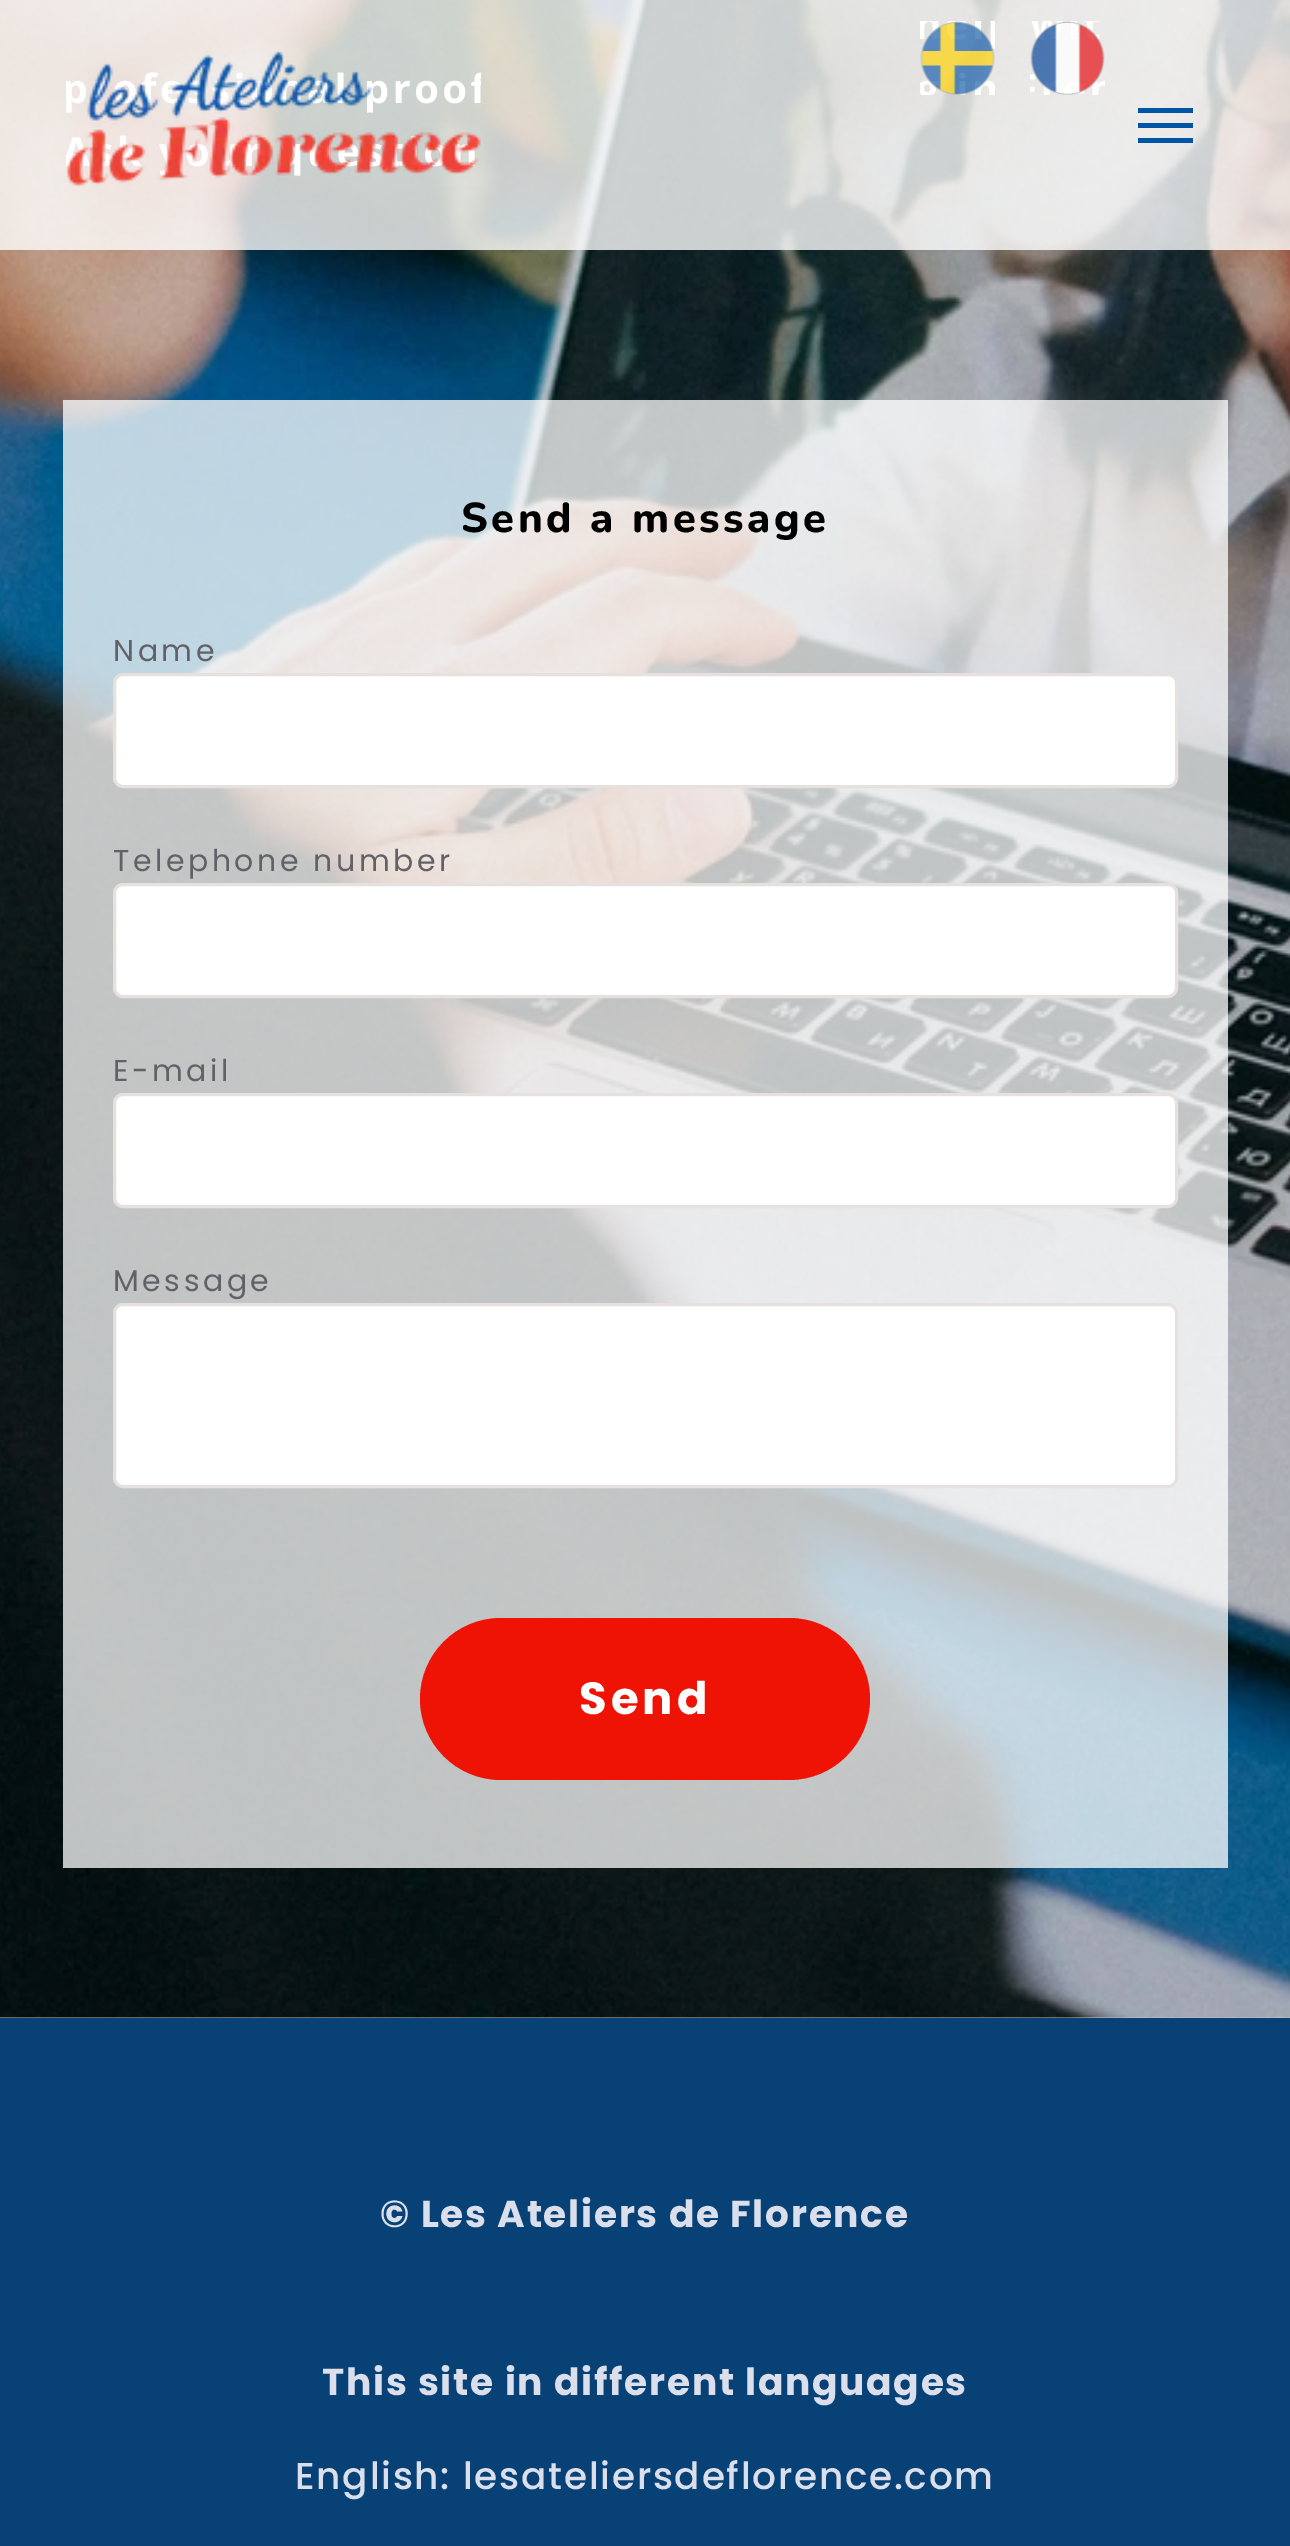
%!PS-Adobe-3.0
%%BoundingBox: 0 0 1290 2546
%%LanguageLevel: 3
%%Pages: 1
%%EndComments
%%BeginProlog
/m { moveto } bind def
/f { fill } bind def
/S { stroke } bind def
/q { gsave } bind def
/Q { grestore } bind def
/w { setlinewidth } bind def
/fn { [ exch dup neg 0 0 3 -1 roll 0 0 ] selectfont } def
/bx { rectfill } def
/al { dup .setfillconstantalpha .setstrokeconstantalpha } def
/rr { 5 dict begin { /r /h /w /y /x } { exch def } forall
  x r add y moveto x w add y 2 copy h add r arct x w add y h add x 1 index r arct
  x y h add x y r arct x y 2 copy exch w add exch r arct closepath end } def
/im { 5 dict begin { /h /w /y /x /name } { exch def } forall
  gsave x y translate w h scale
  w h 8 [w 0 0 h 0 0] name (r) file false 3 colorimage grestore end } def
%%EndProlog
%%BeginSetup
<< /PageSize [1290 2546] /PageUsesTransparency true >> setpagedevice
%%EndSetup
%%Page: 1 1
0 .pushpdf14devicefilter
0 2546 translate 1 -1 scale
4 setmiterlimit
0.769 setgray
0 0 1290 2546 bx
(image3.raw) 0 0 1290 2018 im
0.79 al
1 setgray
0 0 1290 250 bx
1 al
(image0.raw) 66 50 415 136 im
(image1.raw) 920 21 75 74 im
(image2.raw) 1030 21 75 74 im
0 0.333 0.643 setrgbcolor
1138 108 55 5 bx
1138 123 55 5 bx
1138 138 55 5 bx
0.75 al
1 setgray
63 400 1165 1468 bx
/Nunito-ExtraBold 41.75 fn
1 al
0 setgray
461 532 m 3.5 0 (Send a message) ashow
/Poppins-Regular 30 fn
0.384 0.38 0.404 setrgbcolor
113 661 m 3.5 0 (Name) ashow
1 setgray
114.5 674.5 1062 112 8.5 rr q f Q
0.902 0.882 0.871 setrgbcolor
3 w
S
0.384 0.38 0.404 setrgbcolor
113 871 m 3.5 0 (Telephone number) ashow
1 setgray
114.5 884.5 1062 112 8.5 rr q f Q
0.902 0.882 0.871 setrgbcolor
S
0.384 0.38 0.404 setrgbcolor
113 1081 m 3.5 0 (E-mail) ashow
1 setgray
114.5 1094.5 1062 112 8.5 rr q f Q
0.902 0.882 0.871 setrgbcolor
S
0.384 0.38 0.404 setrgbcolor
113 1291 m 3.5 0 (Message) ashow
1 setgray
114.5 1304.5 1062 182 8.5 rr q f Q
0.902 0.882 0.871 setrgbcolor
S
0.933 0.075 0.016 setrgbcolor
420 1618 450 162 81 rr f
/Poppins-Bold 45 fn
1 setgray
579 1714 m 4 0 (Send) ashow
0.031 0.255 0.463 setrgbcolor
0 2018 1290 528 bx
/Poppins-Bold 37.5 fn
0.859 0.875 0.922 setrgbcolor
380 2227 m 1.7 0 (© Les Ateliers de Florence) ashow
322 2395 m 1.7 0 (This site in different languages) ashow
/Poppins-Medium 37.5 fn
295 2489 m 1.7 0 (English: lesateliersdeflorence.com) ashow
.poppdf14devicefilter showpage
%%EOF
